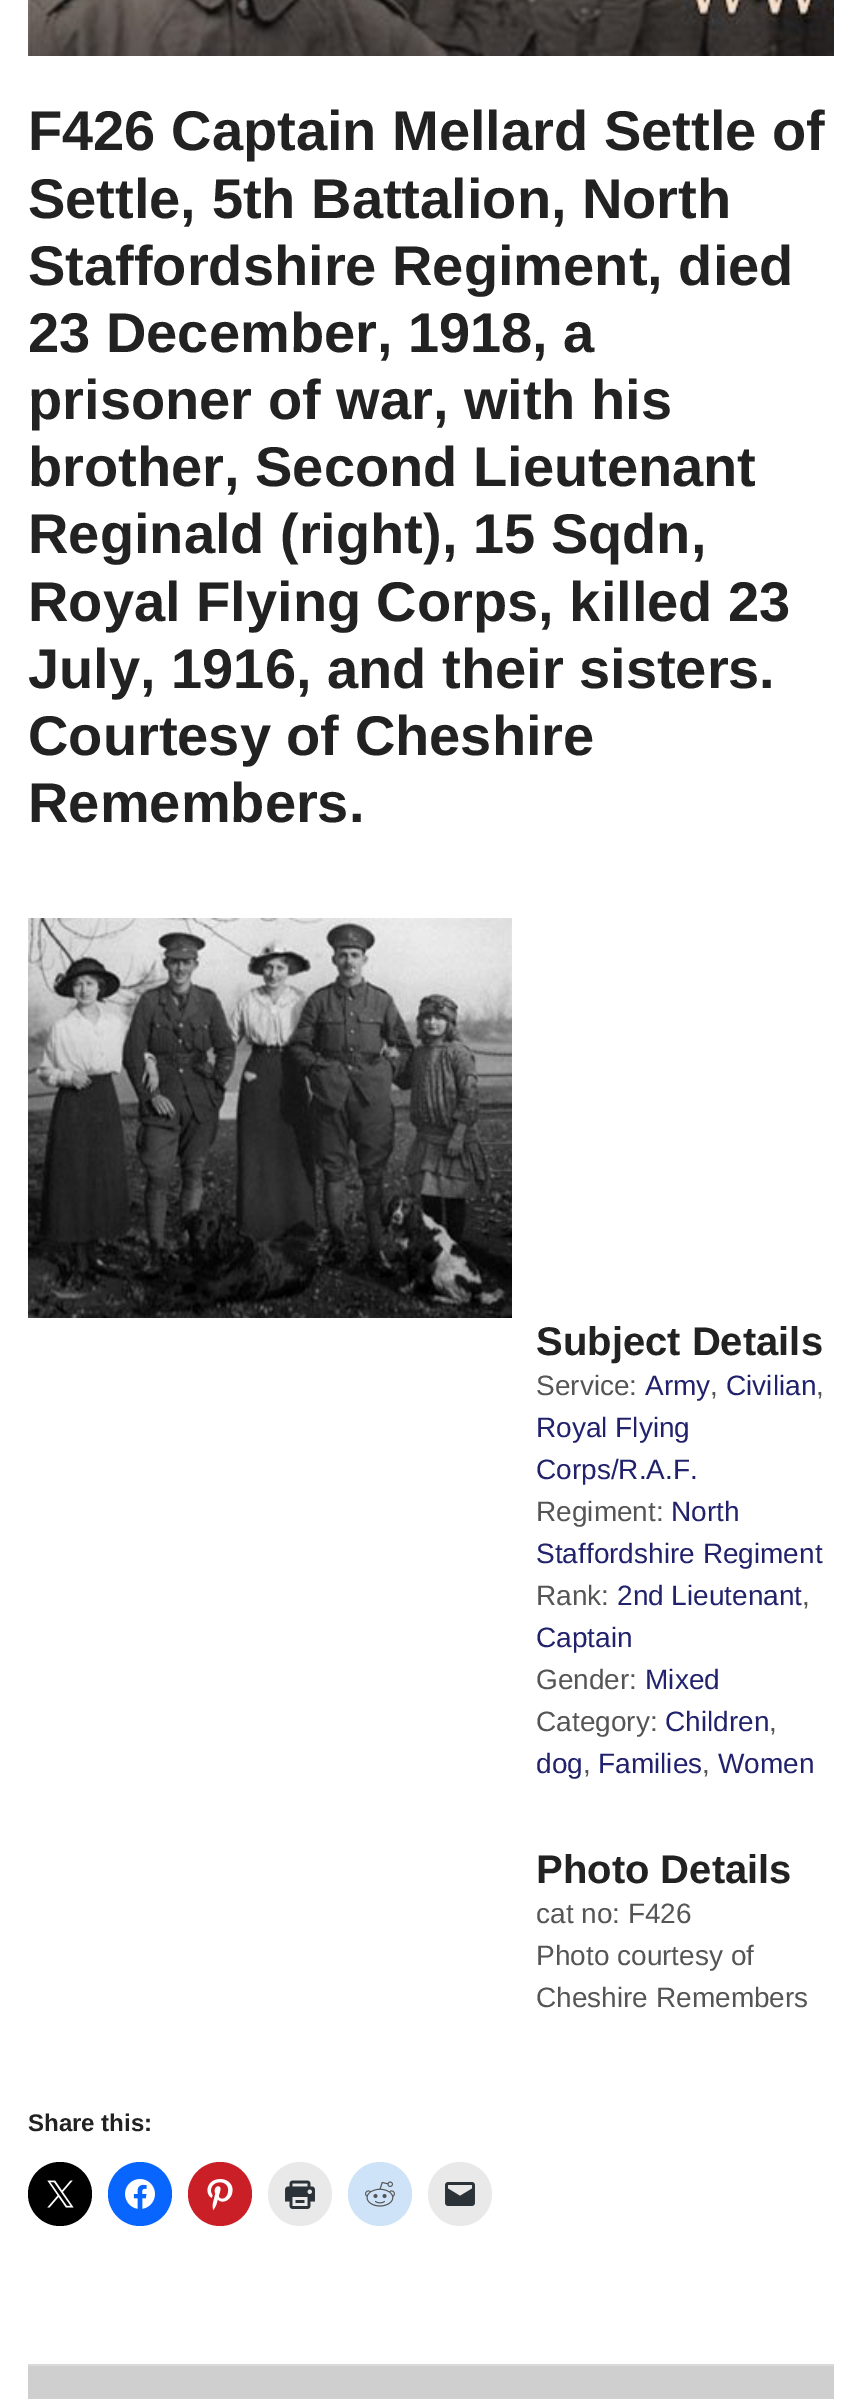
%!PS-Adobe-3.0
%%BoundingBox: 0 0 861 2399
%%LanguageLevel: 3
%%Pages: 1
%%EndComments
%%BeginProlog
/f { fill } bind def
/fn { [ exch dup neg 0 0 3 -1 roll 0 0 ] selectfont } def
/tx { moveto show } def
/bx { rectfill } def
/ci { newpath 0 360 arc closepath } def
/im { 5 dict begin { /h /w /y /x /name } { exch def } forall
  gsave x y translate w h scale
  w h 8 [w 0 0 h 0 0] name (r) file false 3 colorimage grestore end } def
%%EndProlog
%%BeginSetup
<< /PageSize [861 2399] >> setpagedevice
%%EndSetup
%%Page: 1 1
0 2399 translate 1 -1 scale
4 setmiterlimit
1 setgray
0 0 861 2399 bx
(image0.raw) 28 0 806 56 im
/LiberationSans-Bold 56 fn
0.133 setgray
(F426 Captain Mellard Settle of) 28 150 tx
(Settle, 5th Battalion, North) 28 218 tx
(Staffordshire Regiment, died) 28 285 tx
(23 December, 1918, a) 28 352 tx
(prisoner of war, with his) 28 419 tx
(brother, Second Lieutenant) 28 486 tx
(Reginald \(right\), 15 Sqdn,) 28 553 tx
(Royal Flying Corps, killed 23) 28 621 tx
(July, 1916, and their sisters.) 28 688 tx
(Courtesy of Cheshire) 28 755 tx
(Remembers.) 28 822 tx
(image1.raw) 28 918 484 400 im
/LiberationSans-Bold 40 fn
(Subject Details) 536 1355 tx
/LiberationSans-Regular 28 fn
0.333 setgray
(Service:) 536 1395 tx
0.129 0.129 0.424 setrgbcolor
(Army) 645 1395 tx
0.333 setgray
(,) 710 1395 tx
0.129 0.129 0.424 setrgbcolor
(Civilian) 726 1395 tx
0.333 setgray
(,) 816 1395 tx
0.129 0.129 0.424 setrgbcolor
(Royal Flying) 536 1437 tx
(Corps/R.A.F.) 536 1479 tx
0.333 setgray
(Regiment:) 536 1521 tx
0.129 0.129 0.424 setrgbcolor
(North) 671 1521 tx
(Staffordshire Regiment) 536 1563 tx
0.333 setgray
(Rank:) 536 1605 tx
0.129 0.129 0.424 setrgbcolor
(2nd Lieutenant) 617 1605 tx
0.333 setgray
(,) 802 1605 tx
0.129 0.129 0.424 setrgbcolor
(Captain) 536 1647 tx
0.333 setgray
(Gender:) 536 1689 tx
0.129 0.129 0.424 setrgbcolor
(Mixed) 645 1689 tx
0.333 setgray
(Category:) 536 1731 tx
0.129 0.129 0.424 setrgbcolor
(Children) 665 1731 tx
0.333 setgray
(,) 769 1731 tx
0.129 0.129 0.424 setrgbcolor
(dog) 536 1773 tx
0.333 setgray
(,) 583 1773 tx
0.129 0.129 0.424 setrgbcolor
(Families) 598 1773 tx
0.333 setgray
(,) 702 1773 tx
0.129 0.129 0.424 setrgbcolor
(Women) 718 1773 tx
/LiberationSans-Bold 40 fn
0.133 setgray
(Photo Details) 536 1883 tx
/LiberationSans-Regular 28 fn
0.333 setgray
(cat no: F426) 536 1923 tx
(Photo courtesy of) 536 1965 tx
(Cheshire Remembers) 536 2007 tx
/LiberationSans-Bold 24 fn
0.133 setgray
(Share this:) 28 2131 tx
0 setgray
60 2194 32 ci f
(image2.raw) 47 2180 27 28 im
0.031 0.4 1 setrgbcolor
140 2194 32 ci f
(image3.raw) 125 2179 30 30 im
0.792 0.122 0.153 setrgbcolor
220 2194 32 ci f
(image4.raw) 207 2179 26 32 im
0.914 setgray
300 2194 32 ci f
(image5.raw) 285 2180 30 29 im
0.808 0.89 0.973 setrgbcolor
380 2194 32 ci f
(image6.raw) 365 2181 30 26 im
0.914 setgray
460 2194 32 ci f
(image7.raw) 445 2182 30 24 im
0.812 setgray
28 2366 806 33 bx
0.859 setgray
28 2364 806 2 bx
showpage
%%EOF
